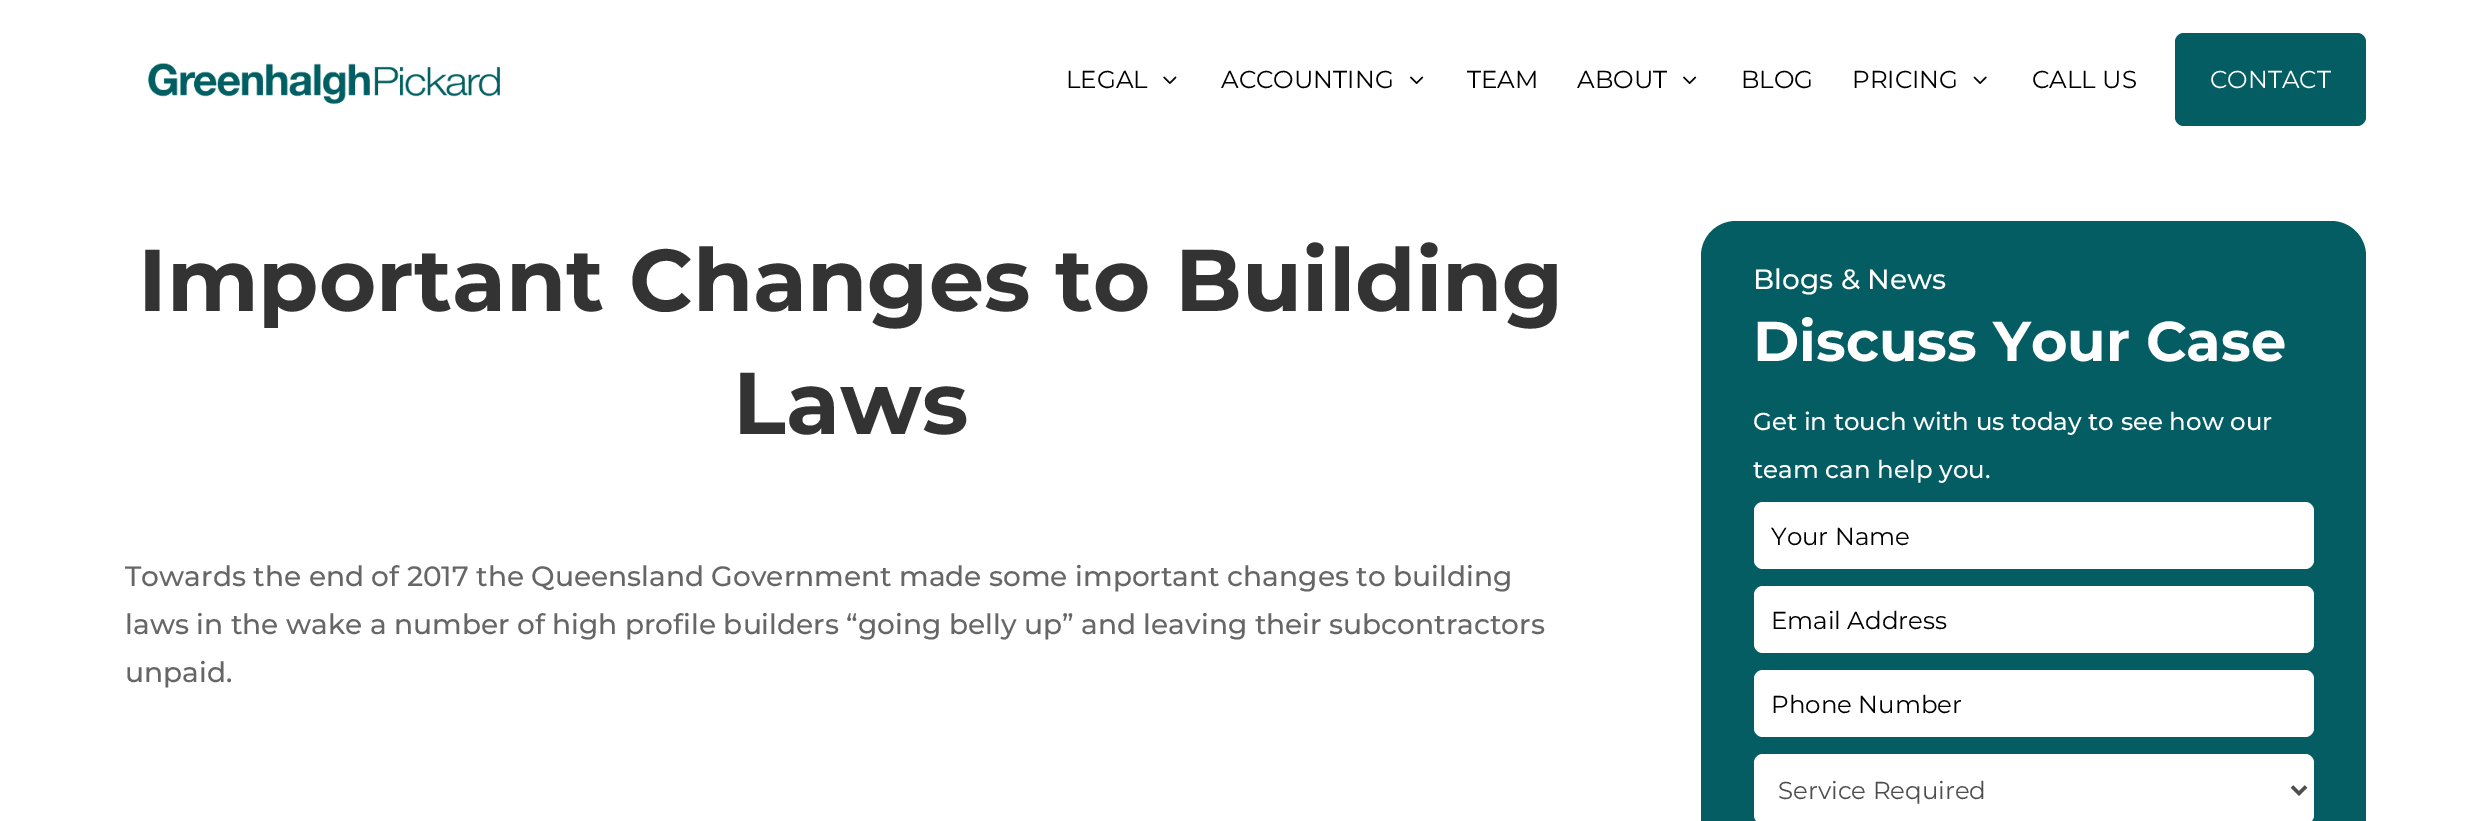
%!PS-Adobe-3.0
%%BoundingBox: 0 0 2490 821
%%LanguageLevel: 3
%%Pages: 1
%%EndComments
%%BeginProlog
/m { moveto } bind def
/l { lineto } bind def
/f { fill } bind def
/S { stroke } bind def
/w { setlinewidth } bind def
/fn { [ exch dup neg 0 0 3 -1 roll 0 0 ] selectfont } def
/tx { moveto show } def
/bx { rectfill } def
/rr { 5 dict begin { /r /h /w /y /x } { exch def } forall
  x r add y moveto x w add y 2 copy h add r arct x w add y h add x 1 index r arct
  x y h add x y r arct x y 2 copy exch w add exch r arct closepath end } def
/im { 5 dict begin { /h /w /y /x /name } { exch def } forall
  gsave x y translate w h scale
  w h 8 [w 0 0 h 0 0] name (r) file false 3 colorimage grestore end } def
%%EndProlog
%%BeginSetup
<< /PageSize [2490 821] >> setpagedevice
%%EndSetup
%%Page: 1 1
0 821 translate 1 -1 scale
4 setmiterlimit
1 setgray
0 0 2490 821 bx
(image0.raw) 148 63 352 42 im
/Montserrat-Regular 24.5 fn
0 setgray
(LEGAL) 1066 88 tx
(image1.raw) 1163 76 14 8 im
(ACCOUNTING) 1221 88 tx
(image2.raw) 1410 76 14 8 im
(TEAM) 1467 88 tx
(ABOUT) 1577 88 tx
(image2.raw) 1683 76 14 8 im
(BLOG) 1741 88 tx
(PRICING) 1852 88 tx
(image3.raw) 1973 76 14 8 im
(CALL US) 2032 88 tx
0.016 0.365 0.388 setrgbcolor
2175 33 191 93 9 rr f
1 setgray
(CONTACT) 2210 88 tx
/Montserrat-Bold 87.5 fn
0.2 setgray
(Important Changes to Building) 138 311 tx
(Laws) 733 434 tx
/Montserrat-Medium 28 fn
0.4 setgray
(Towards the end of 2017 the Queensland Government made some important changes to building) 125 586 tx
(laws in the wake a number of high profile builders “going belly up” and leaving their subcontractors) 125 634 tx
(unpaid.) 125 682 tx
0.016 0.365 0.388 setrgbcolor
1701 221 665 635 35 rr f
1 setgray
(Blogs & News) 1753 289 tx
/Montserrat-Bold 56 fn
(Discuss Your Case) 1753 361 tx
/Montserrat-Medium 24.5 fn
(Get in touch with us today to see how our) 1753 430 tx
(team can help you.) 1753 478 tx
1754 502 560 67 9 rr f
/Montserrat-Regular 24.5 fn
0 setgray
(Your Name) 1771 545 tx
1 setgray
1754 586 560 67 9 rr f
0 setgray
(Email Address) 1771 629 tx
1 setgray
1754 670 560 67 9 rr f
0 setgray
(Phone Number) 1771 713 tx
1 setgray
1754 754 560 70 9 rr f
0.306 setgray
3.5 w
2292 786.5 m 2299 793.5 l 2306 786.5 l S
(Service Required) 1778 799 tx
showpage
%%EOF
